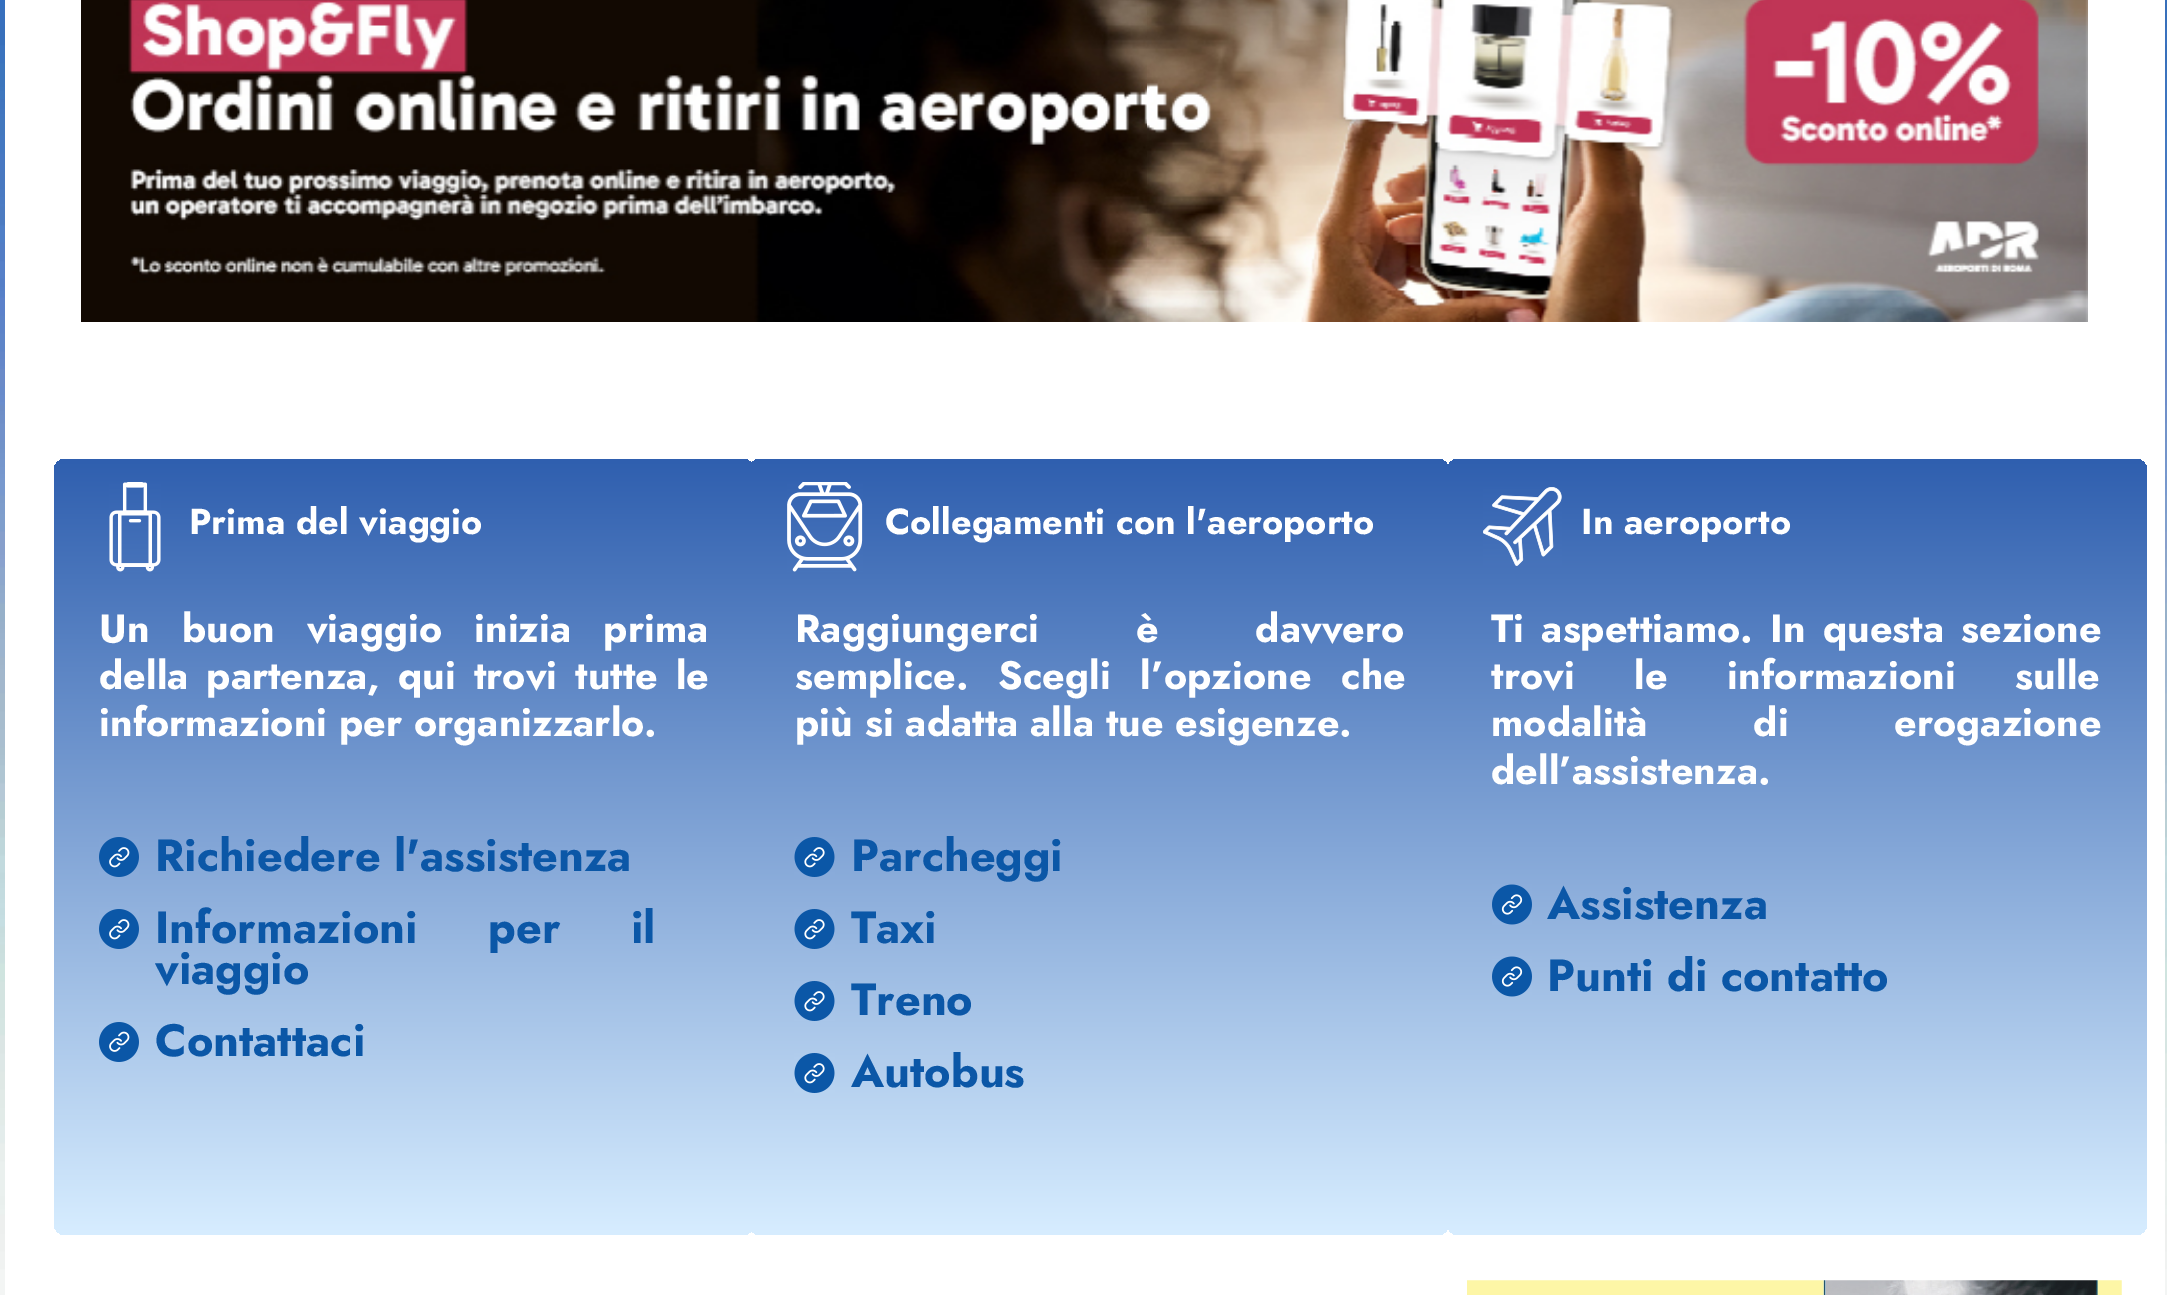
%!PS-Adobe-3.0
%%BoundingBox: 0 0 2167 1295
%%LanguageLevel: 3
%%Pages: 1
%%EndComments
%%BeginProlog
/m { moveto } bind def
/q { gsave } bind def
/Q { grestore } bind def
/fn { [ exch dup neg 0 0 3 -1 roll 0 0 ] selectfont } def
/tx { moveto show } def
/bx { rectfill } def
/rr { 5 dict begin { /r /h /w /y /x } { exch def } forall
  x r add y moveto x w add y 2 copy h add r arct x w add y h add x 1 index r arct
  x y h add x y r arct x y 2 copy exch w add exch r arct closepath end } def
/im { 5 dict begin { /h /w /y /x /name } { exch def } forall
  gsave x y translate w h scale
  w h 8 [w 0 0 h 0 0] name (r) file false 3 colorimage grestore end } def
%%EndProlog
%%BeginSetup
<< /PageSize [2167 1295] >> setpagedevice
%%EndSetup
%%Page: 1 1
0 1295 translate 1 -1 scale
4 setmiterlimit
1 setgray
0 0 2167 1295 bx
(image0.raw) 0 0 2167 1295 im
5 0 2160 1295 bx
(image1.raw) 81 0 2007 322 im
q 54 459 700 776 11 rr clip newpath
<< /ShadingType 2 /ColorSpace /DeviceRGB /Coords [404 1235 404 459] /Extend [true true] /Function << /FunctionType 2 /Domain [0 1] /C0 [0.843 0.929 1] /C1 [0.184 0.373 0.686] /N 1 >> >> shfill Q
(image2.raw) 109 482 52 90 im
/Jost-Bold 36 fn
(Prima del viaggio) 189 534 tx
/Jost-Bold 39.4 fn
99 642 m 20.5 0 32 (Un buon viaggio inizia prima) widthshow
99 689 m 6 0 32 (della partenza, qui trovi tutte le) widthshow
(informazioni per organizzarlo.) 99 736 tx
(image3.raw) 99 837 40 40 im
/Jost-Bold 45 fn
0.043 0.341 0.655 setrgbcolor
(Richiedere l'assistenza) 155 871 tx
(image4.raw) 99 909 40 40 im
155 943 m 57 0 32 (Informazioni per il) widthshow
(viaggio) 155 984 tx
(image5.raw) 99 1022 40 40 im
(Contattaci) 155 1056 tx
q 749 459 700 776 11 rr clip newpath
<< /ShadingType 2 /ColorSpace /DeviceRGB /Coords [1099 1235 1099 459] /Extend [true true] /Function << /FunctionType 2 /Domain [0 1] /C0 [0.843 0.929 1] /C1 [0.184 0.373 0.686] /N 1 >> >> shfill Q
(image6.raw) 787 482 76 90 im
/Jost-Bold 36 fn
1 setgray
(Collegamenti con l'aeroporto) 885 534 tx
/Jost-Bold 39.4 fn
795 642 m 85 0 32 (Raggiungerci è davvero) widthshow
795 689 m 18 0 32 (semplice. Scegli l’opzione che) widthshow
(più si adatta alla tue esigenze.) 795 736 tx
(image7.raw) 794 837 41 40 im
/Jost-Bold 45 fn
0.043 0.341 0.655 setrgbcolor
(Parcheggi) 851 871 tx
(image8.raw) 794 909 41 40 im
(Taxi) 851 943 tx
(image9.raw) 794 981 41 40 im
(Treno) 851 1015 tx
(image10.raw) 794 1053 41 40 im
(Autobus) 851 1087 tx
q 1447 459 700 776 11 rr clip newpath
<< /ShadingType 2 /ColorSpace /DeviceRGB /Coords [1797 1235 1797 459] /Extend [true true] /Function << /FunctionType 2 /Domain [0 1] /C0 [0.843 0.929 1] /C1 [0.184 0.373 0.686] /N 1 >> >> shfill Q
(image11.raw) 1483 487 79 79 im
/Jost-Bold 36 fn
1 setgray
(In aeroporto) 1581 534 tx
/Jost-Bold 39.4 fn
1491 642 m 5.5 0 32 (Ti aspettiamo. In questa sezione) widthshow
1491 689 m 48 0 32 (trovi le informazioni sulle) widthshow
1491 736 m 94 0 32 (modalità di erogazione) widthshow
(dell’assistenza.) 1491 784 tx
(image12.raw) 1492 884 40 41 im
/Jost-Bold 45 fn
0.043 0.341 0.655 setrgbcolor
(Assistenza) 1547 919 tx
(image13.raw) 1492 956 40 41 im
(Punti di contatto) 1547 991 tx
(image14.raw) 1467 1280 655 15 im
showpage
%%EOF
